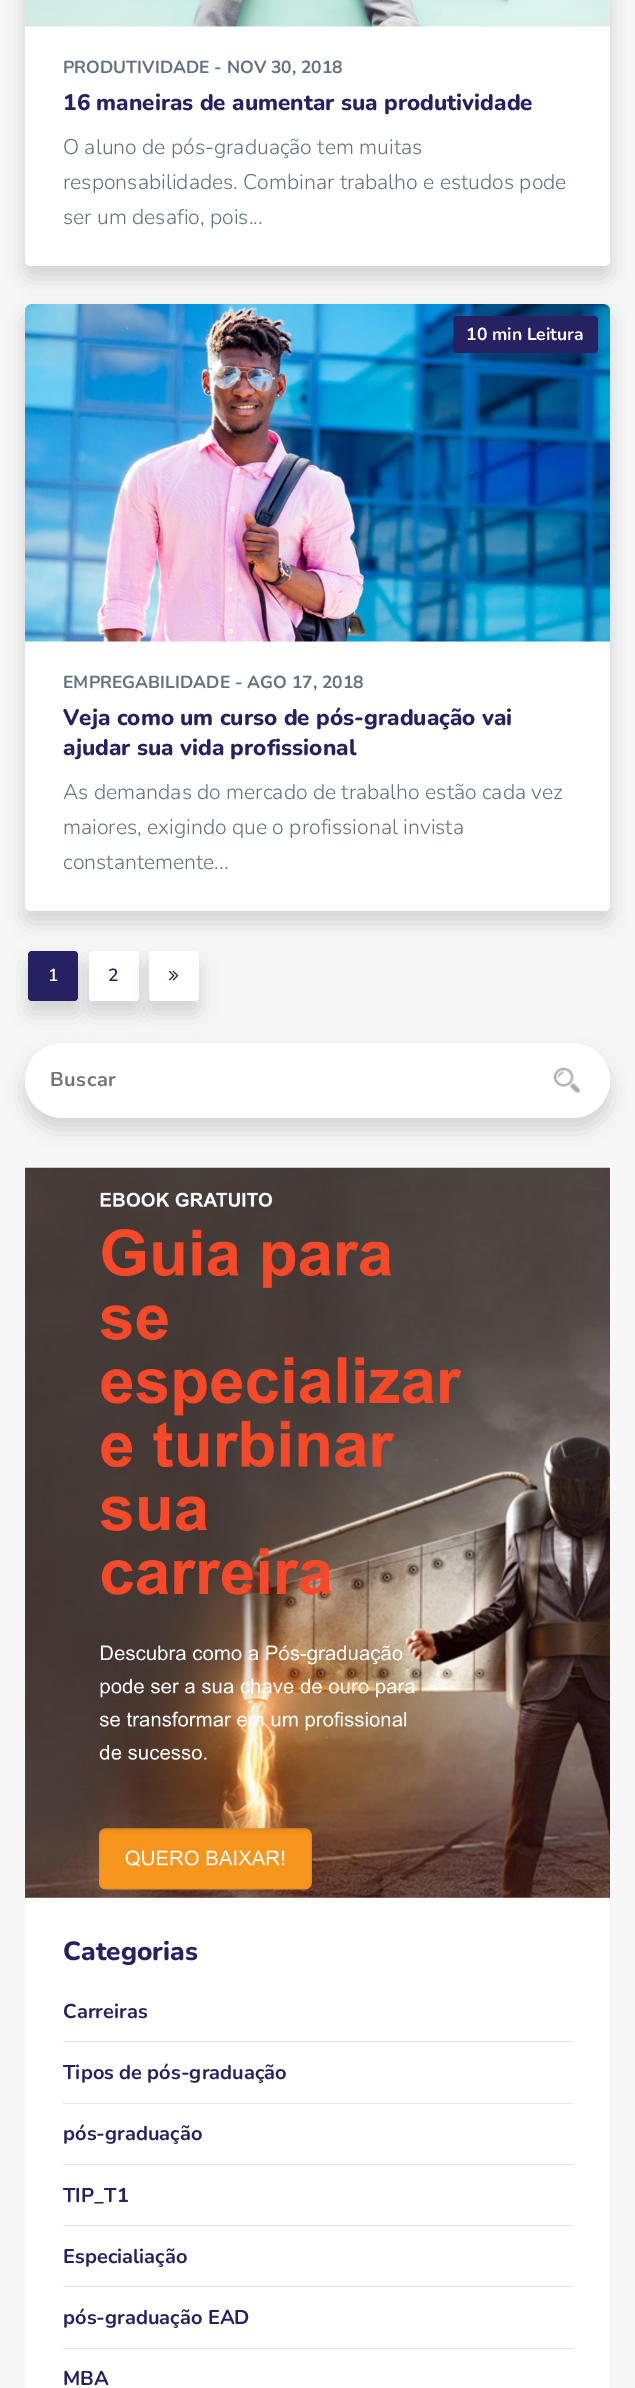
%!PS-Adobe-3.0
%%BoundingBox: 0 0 635 2388
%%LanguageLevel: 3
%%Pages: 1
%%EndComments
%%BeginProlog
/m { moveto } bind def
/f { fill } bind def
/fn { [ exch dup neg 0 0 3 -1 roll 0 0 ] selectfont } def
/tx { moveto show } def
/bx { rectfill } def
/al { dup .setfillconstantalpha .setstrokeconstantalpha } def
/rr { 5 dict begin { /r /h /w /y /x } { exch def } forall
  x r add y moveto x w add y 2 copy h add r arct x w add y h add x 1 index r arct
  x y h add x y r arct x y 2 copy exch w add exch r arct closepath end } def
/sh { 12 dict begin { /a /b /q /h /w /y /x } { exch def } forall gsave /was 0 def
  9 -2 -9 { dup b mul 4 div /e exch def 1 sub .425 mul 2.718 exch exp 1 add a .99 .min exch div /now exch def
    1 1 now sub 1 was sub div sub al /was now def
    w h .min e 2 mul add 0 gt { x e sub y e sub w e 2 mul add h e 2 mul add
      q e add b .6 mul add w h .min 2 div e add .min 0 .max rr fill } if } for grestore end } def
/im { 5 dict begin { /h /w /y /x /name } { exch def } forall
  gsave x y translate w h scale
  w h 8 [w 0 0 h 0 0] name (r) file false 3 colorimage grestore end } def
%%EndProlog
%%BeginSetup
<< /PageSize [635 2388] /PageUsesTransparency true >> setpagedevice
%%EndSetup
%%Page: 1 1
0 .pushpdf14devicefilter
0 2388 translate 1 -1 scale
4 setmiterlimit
0.969 setgray
0 0 635 2388 bx
0 setgray
25 -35 585 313 6 9.5 0.15 sh
1 setgray
25 -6 585 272 6 rr f
(image0.raw) 25 0 585 27 im
/Nunito-Bold 17.5 fn
0.388 0.447 0.51 setrgbcolor
(PRODUTIVIDADE - NOV 30, 2018) 63 73 tx
/Nunito-ExtraBold 22.5 fn
0.149 0.129 0.384 setrgbcolor
(16 maneiras de aumentar sua produtividade) 63 110 tx
/Nunito-Light 21.25 fn
0.388 0.447 0.51 setrgbcolor
(O aluno de pós-graduação tem muitas) 63 154 tx
(responsabilidades. Combinar trabalho e estudos pode) 63 189 tx
(ser um desafio, pois...) 63 224 tx
0 setgray
28 963 50 50 4 9.5 0.15 sh
0.149 0.129 0.384 setrgbcolor
28 951 50 50 4 rr f
0 setgray
89 963 50 50 4 9.5 0.15 sh
1 setgray
89 951 50 50 4 rr f
0 setgray
149 963 50 50 4 9.5 0.15 sh
1 setgray
149 951 50 50 4 rr f
0 setgray
25 315 585 608 6 9.5 0.15 sh
1 setgray
25 304 585 607 6 rr f
(image1.raw) 25 304 585 338 im
0.149 0.129 0.384 setrgbcolor
453 316 145 37 4 rr f
/Nunito-Bold 17.5 fn
1 setgray
(10 min Leitura) 466 340 tx
0.388 0.447 0.51 setrgbcolor
(EMPREGABILIDADE - AGO 17, 2018) 63 688 tx
/Nunito-ExtraBold 22.5 fn
0.149 0.129 0.384 setrgbcolor
(Veja como um curso de pós-graduação vai) 63 725 tx
(ajudar sua vida profissional) 63 755 tx
/Nunito-Light 21.25 fn
0.388 0.447 0.51 setrgbcolor
(As demandas do mercado de trabalho estão cada vez) 63 799 tx
(maiores, exigindo que o profissional invista) 63 834 tx
(constantemente...) 63 869 tx
/Nunito-SemiBold 17.5 fn
1 setgray
(1) 48 981 tx
0.149 0.129 0.384 setrgbcolor
(2) 108 981 tx
(image2.raw) 168 970 11 11 im
0 setgray
25 1054 585 75 37.5 9.5 0.15 sh
1 setgray
25 1043 585 75 37.5 rr f
/Nunito-Bold 20 fn
0.459 setgray
50 1086 m 0.5 0 (Buscar) ashow
(image3.raw) 553 1067 27 26 im
(image4.raw) 25 1167 585 731 im
1 setgray
25 1898 585 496 6 rr f
/Nunito-ExtraBold 26.25 fn
0.149 0.129 0.384 setrgbcolor
(Categorias) 63 1960 tx
0.902 setgray
63 2041 510 1 bx
/Nunito-Bold 20 fn
0.149 0.129 0.384 setrgbcolor
(Carreiras) 63 2018 tx
0.902 setgray
63 2103 510 1 bx
0.149 0.129 0.384 setrgbcolor
(Tipos de pós-graduação) 63 2079 tx
0.902 setgray
63 2164 510 1 bx
0.149 0.129 0.384 setrgbcolor
(pós-graduação) 63 2140 tx
0.902 setgray
63 2225 510 1 bx
0.149 0.129 0.384 setrgbcolor
(TIP_T1) 63 2202 tx
0.902 setgray
63 2286 510 1 bx
0.149 0.129 0.384 setrgbcolor
(Especialiação) 63 2263 tx
0.902 setgray
63 2348 510 1 bx
0.149 0.129 0.384 setrgbcolor
(pós-graduação EAD) 63 2324 tx
(MBA) 63 2385 tx
.poppdf14devicefilter showpage
%%EOF
